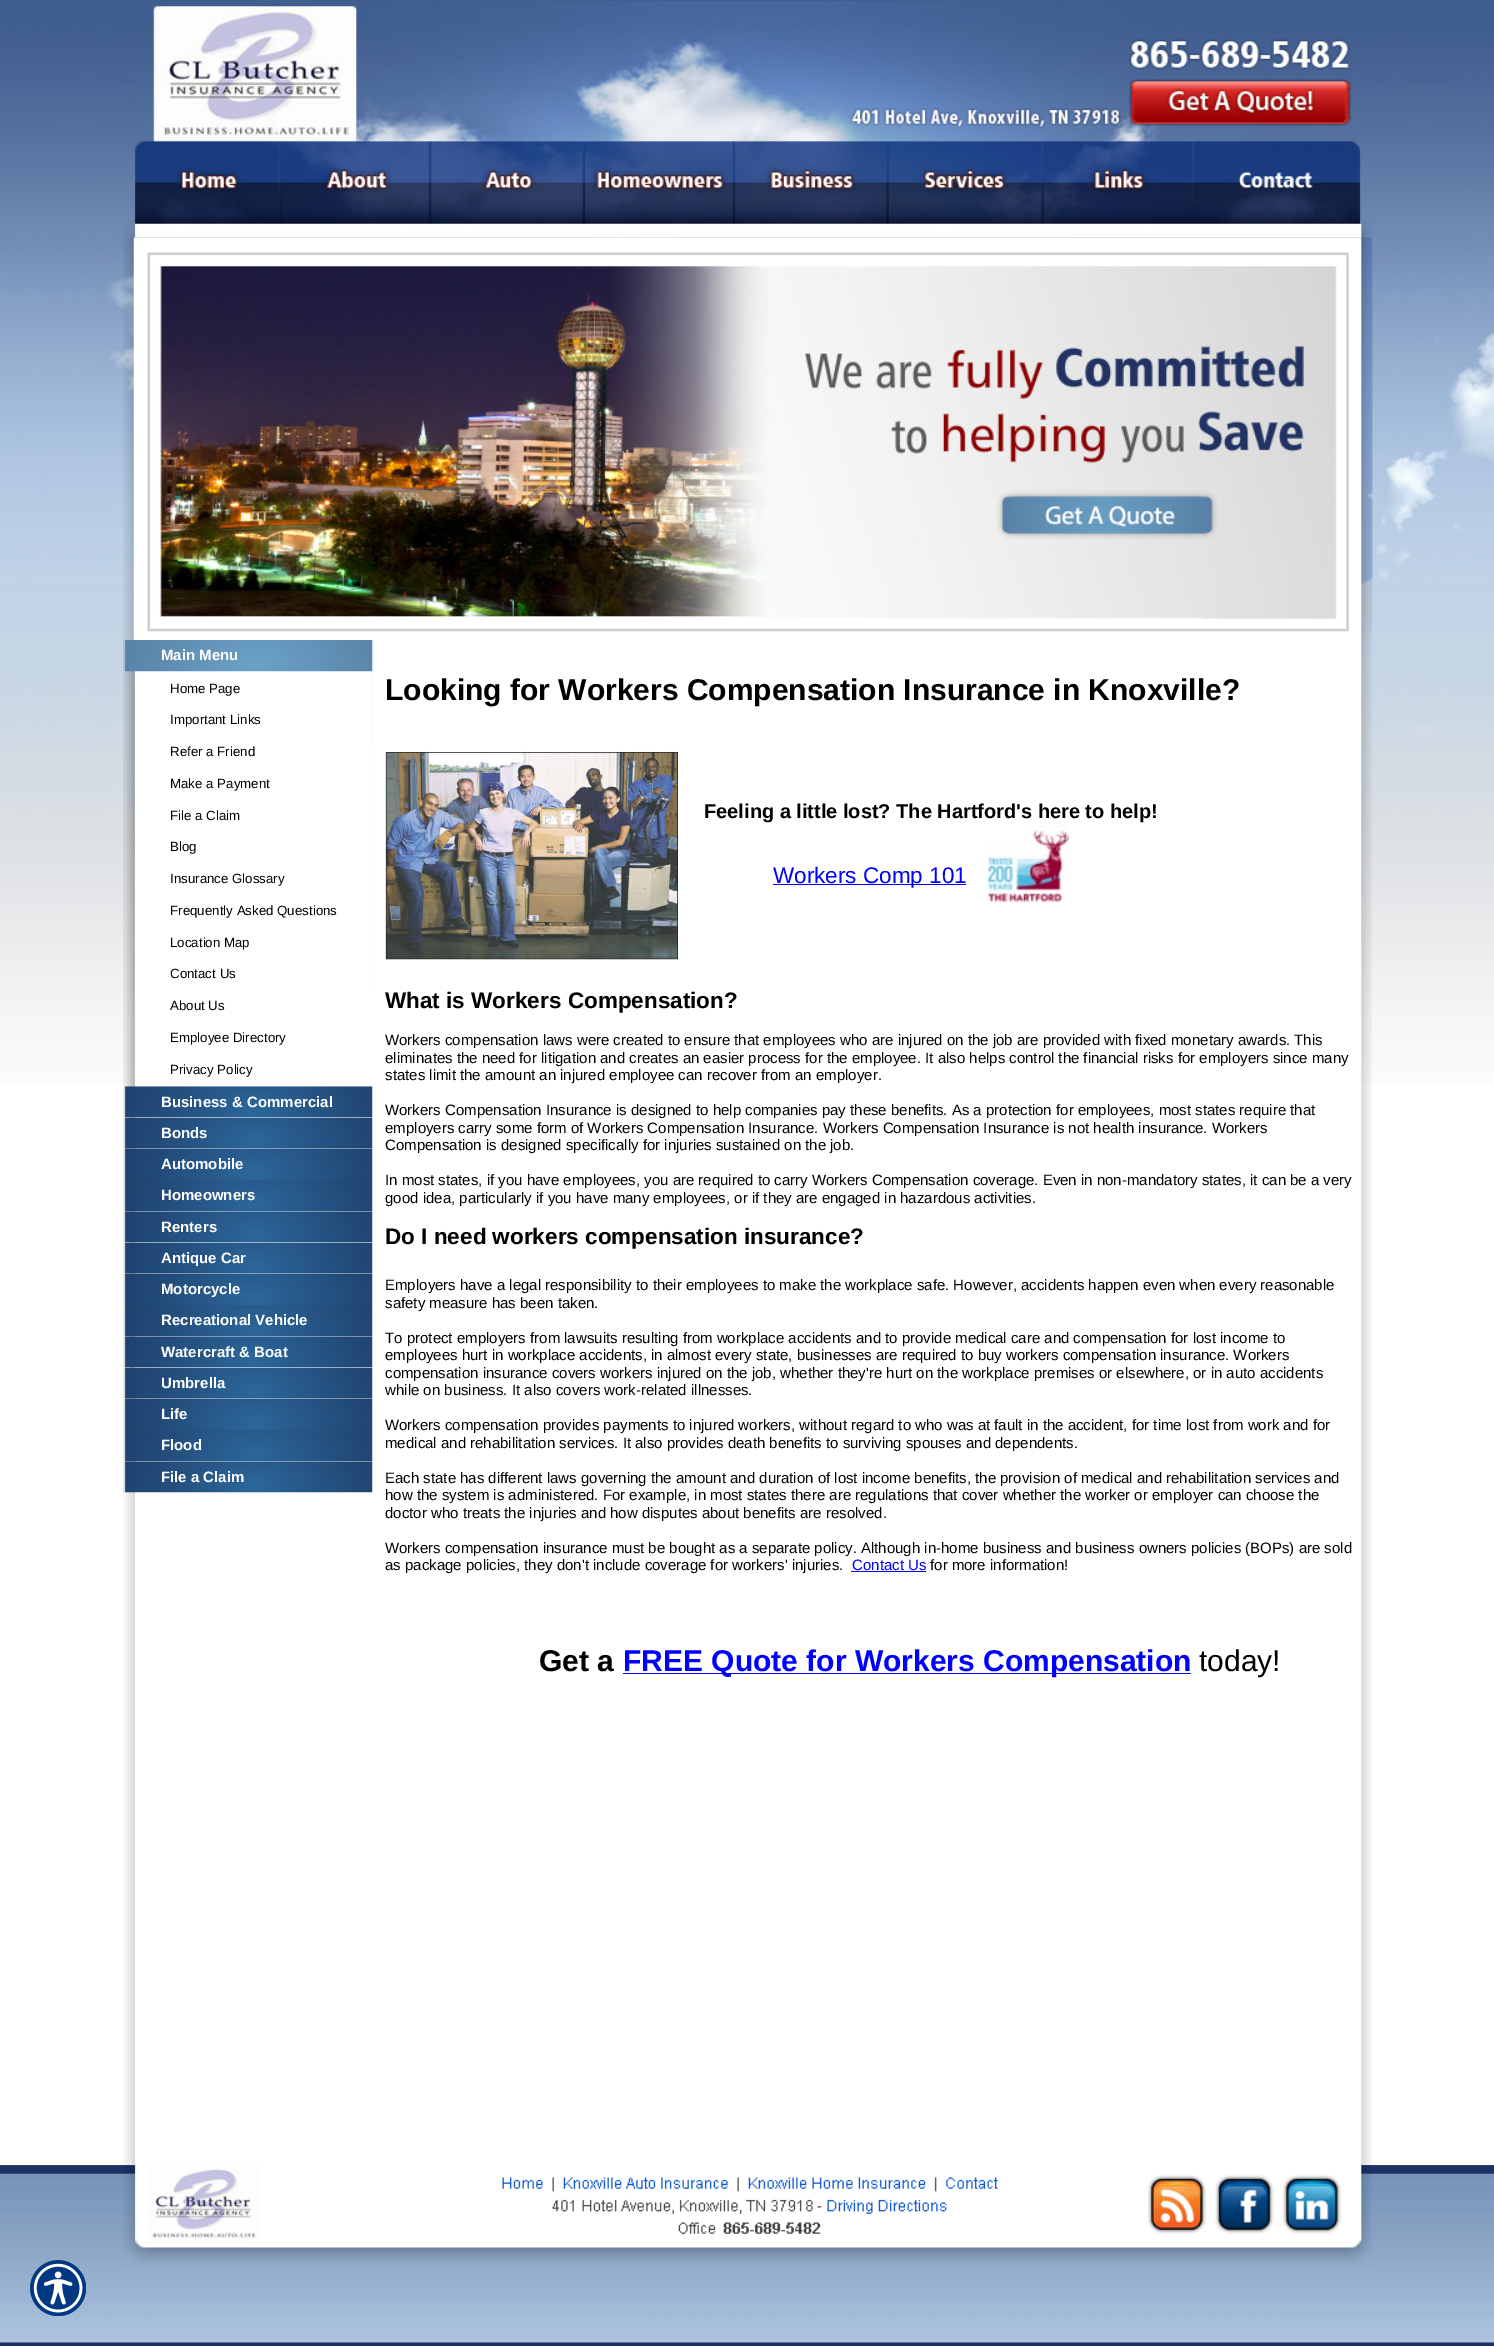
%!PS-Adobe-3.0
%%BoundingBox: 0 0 1494 2346
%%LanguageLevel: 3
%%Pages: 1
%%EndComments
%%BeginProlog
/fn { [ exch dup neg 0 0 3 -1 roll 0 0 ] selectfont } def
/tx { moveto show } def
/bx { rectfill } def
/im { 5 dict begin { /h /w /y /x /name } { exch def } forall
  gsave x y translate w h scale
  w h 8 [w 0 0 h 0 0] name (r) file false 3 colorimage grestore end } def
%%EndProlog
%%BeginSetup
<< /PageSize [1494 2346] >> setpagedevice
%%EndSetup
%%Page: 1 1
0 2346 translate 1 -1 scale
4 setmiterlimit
1 setgray
0 0 1494 2346 bx
(image0.raw) 0 0 1494 1083 im
(image1.raw) 1070 130 303 510 im
(image2.raw) 123 0 1250 238 im
(image3.raw) 123 237 1249 403 im
(image4.raw) 123 640 250 1525 im
(image5.raw) 123 640 250 853 im
(image14.raw) 372 640 1000 1525 im
(image6.raw) 123 640 250 32 im
/LiberationSans-Bold 15 fn
(Main Menu) 161 660 tx
/LiberationSans-Regular 13.3 fn
0 setgray
(Home Page) 170 693 tx
(Important Links) 170 724 tx
(Refer a Friend) 170 756 tx
(Make a Payment) 170 788 tx
(File a Claim) 170 820 tx
(Blog) 170 851 tx
(Insurance Glossary) 170 883 tx
(Frequently Asked Questions) 170 915 tx
(Location Map) 170 947 tx
(Contact Us) 170 978 tx
(About Us) 170 1010 tx
(Employee Directory) 170 1042 tx
(Privacy Policy) 170 1074 tx
(image7.raw) 123 1086 250 32 im
/LiberationSans-Bold 15 fn
1 setgray
(Business & Commercial) 161 1107 tx
(image8.raw) 123 1117 250 32 im
(Bonds) 161 1138 tx
(image9.raw) 123 1148 250 32 im
(Automobile) 161 1169 tx
(image10.raw) 123 1180 250 32 im
(Homeowners) 161 1200 tx
(image11.raw) 123 1211 250 32 im
(Renters) 161 1232 tx
(image8.raw) 123 1242 250 32 im
(Antique Car) 161 1263 tx
(image12.raw) 123 1273 250 32 im
(Motorcycle) 161 1294 tx
(image10.raw) 123 1305 250 32 im
(Recreational Vehicle) 161 1325 tx
(image11.raw) 123 1336 250 32 im
(Watercraft & Boat) 161 1357 tx
(image8.raw) 123 1367 250 32 im
(Umbrella) 161 1388 tx
(image12.raw) 123 1398 250 32 im
(Life) 161 1419 tx
(image10.raw) 123 1430 250 32 im
(Flood) 161 1450 tx
(image13.raw) 123 1461 250 32 im
(File a Claim) 161 1482 tx
/LiberationSans-Bold 30 fn
0 setgray
(Looking for Workers Compensation Insurance in Knoxville?) 385 700 tx
(image15.raw) 385 751 294 209 im
/LiberationSans-Bold 20 fn
(Feeling a little lost? The Hartford's here to help!) 704 818 tx
0 0 1 setrgbcolor
773 884 193 1 bx
/LiberationSans-Regular 22.5 fn
(Workers Comp 101) 773 883 tx
(image16.raw) 985 823 85 80 im
/LiberationSans-Bold 22.5 fn
0 setgray
(What is Workers Compensation?) 385 1008 tx
/LiberationSans-Regular 15 fn
(Workers compensation laws were created to ensure that employees who are injured on the job are provided with fixed monetary awards. This) 385 1045 tx
(eliminates the need for litigation and creates an easier process for the employee. It also helps control the financial risks for employers since many) 385 1063 tx
(states limit the amount an injured employee can recover from an employer.) 385 1080 tx
(Workers Compensation Insurance is designed to help companies pay these benefits. As a protection for employees, most states require that) 385 1115 tx
(employers carry some form of Workers Compensation Insurance. Workers Compensation Insurance is not health insurance. Workers) 385 1133 tx
(Compensation is designed specifically for injuries sustained on the job.) 385 1150 tx
(In most states, if you have employees, you are required to carry Workers Compensation coverage. Even in non-mandatory states, it can be a very) 385 1185 tx
(good idea, particularly if you have many employees, or if they are engaged in hazardous activities.) 385 1203 tx
/LiberationSans-Bold 22.5 fn
(Do I need workers compensation insurance?) 385 1244 tx
/LiberationSans-Regular 15 fn
(Employers have a legal responsibility to their employees to make the workplace safe. However, accidents happen even when every reasonable) 385 1290 tx
(safety measure has been taken.) 385 1308 tx
(To protect employers from lawsuits resulting from workplace accidents and to provide medical care and compensation for lost income to) 385 1343 tx
(employees hurt in workplace accidents, in almost every state, businesses are required to buy workers compensation insurance. Workers) 385 1360 tx
(compensation insurance covers workers injured on the job, whether they're hurt on the workplace premises or elsewhere, or in auto accidents) 385 1378 tx
(while on business. It also covers work-related illnesses.) 385 1395 tx
(Workers compensation provides payments to injured workers, without regard to who was at fault in the accident, for time lost from work and for) 385 1430 tx
(medical and rehabilitation services. It also provides death benefits to surviving spouses and dependents.) 385 1448 tx
(Each state has different laws governing the amount and duration of lost income benefits, the provision of medical and rehabilitation services and) 385 1483 tx
(how the system is administered. For example, in most states there are regulations that cover whether the worker or employer can choose the) 385 1500 tx
(doctor who treats the injuries and how disputes about benefits are resolved.) 385 1518 tx
(Workers compensation insurance must be bought as a separate policy. Although in-home business and business owners policies \(BOPs\) are sold) 385 1553 tx
(as package policies, they don't include coverage for workers' injuries.) 385 1570 tx
0 0 1 setrgbcolor
(Contact Us) 852 1570 tx
851 1571 75 1 bx
0 setgray
(for more information!) 930 1570 tx
/LiberationSans-Bold 30 fn
(Get a) 539 1671 tx
0 0 1 setrgbcolor
623 1673 568 1 bx
(FREE Quote for Workers Compensation) 623 1671 tx
/LiberationSans-Regular 30 fn
0 setgray
(today!) 1199 1671 tx
(image17.raw) 0 2165 1494 181 im
(image18.raw) 123 2165 1249 100 im
(image19.raw) 30 2260 56 56 im
showpage
%%EOF
